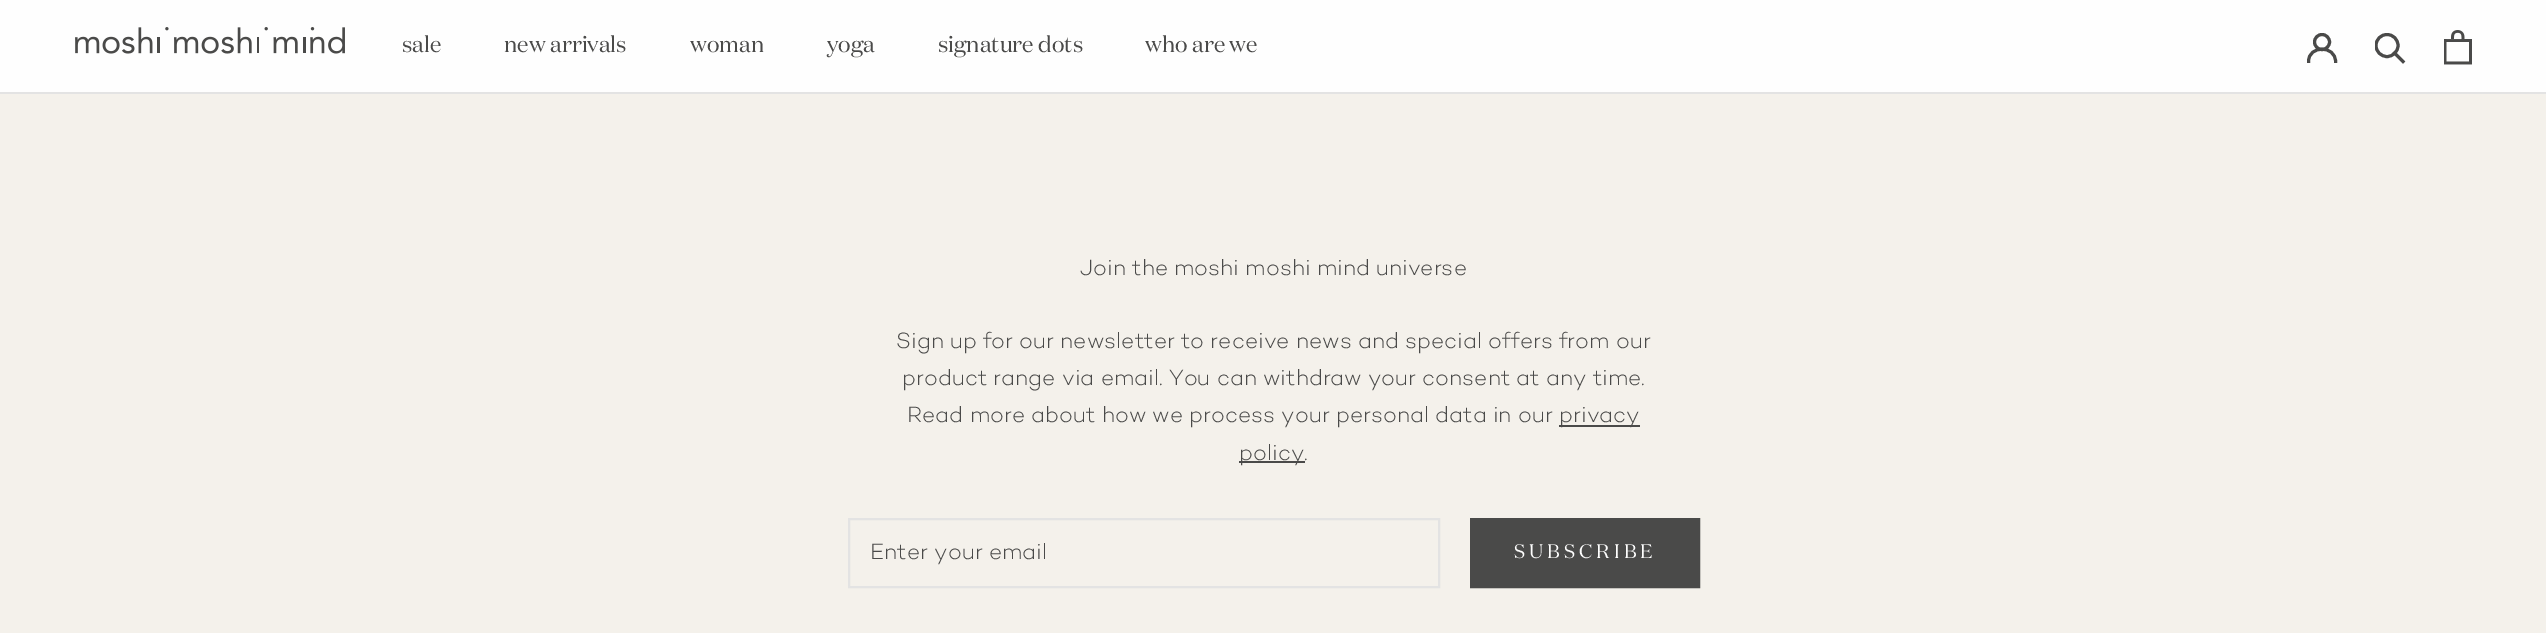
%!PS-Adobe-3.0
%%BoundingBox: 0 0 2546 633
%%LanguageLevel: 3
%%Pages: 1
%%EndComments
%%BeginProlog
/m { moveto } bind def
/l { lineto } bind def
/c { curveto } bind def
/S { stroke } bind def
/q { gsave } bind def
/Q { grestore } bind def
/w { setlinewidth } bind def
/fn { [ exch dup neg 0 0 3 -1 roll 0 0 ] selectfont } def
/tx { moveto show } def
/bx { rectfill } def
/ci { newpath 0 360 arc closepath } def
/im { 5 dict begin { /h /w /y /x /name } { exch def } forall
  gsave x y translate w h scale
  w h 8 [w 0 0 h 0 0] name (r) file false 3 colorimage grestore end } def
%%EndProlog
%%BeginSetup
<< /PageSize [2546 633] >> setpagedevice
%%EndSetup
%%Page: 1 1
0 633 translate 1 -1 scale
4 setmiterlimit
0.957 0.945 0.922 setrgbcolor
0 0 2546 633 bx
0.996 setgray
0 0 2546 92 bx
0.89 setgray
0 92 2546 2 bx
(image0.raw) 75 27 270 27 im
/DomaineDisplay-Regular 22.5 fn
0.29 0.29 0.286 setrgbcolor
(sale) 402 52 tx
(new arrivals) 504 52 tx
(woman) 690 52 tx
(yoga) 827 52 tx
(signature dots) 938 52 tx
(who are we) 1145 52 tx
3 w
2 setlinecap
2308.5 61.5 m 2308.5 45 2335.5 45 2335.5 61.5 c S
0 setlinecap
2322 42 7.5 ci S
2 setlinecap
2403 61.5 m 2394.5 53 l S
q
2375 33 31 32 rectclip
0 setlinecap
2387 45.5 11 ci S
Q
(image1.raw) 2444 30 28 35 im
/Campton-Light 22.5 fn
(Join the moshi moshi mind universe) 1080 275 tx
(Sign up for our newsletter to receive news and special offers from our) 896 348 tx
(product range via email. You can withdraw your consent at any time.) 902 385 tx
(Read more about how we process your personal data in our) 907 422 tx
1559 425 81 2 bx
(privacy) 1559 422 tx
1239 461 66 2 bx
(policy.) 1239 460 tx
0.89 setgray
2 w
0 setlinecap
849 519 590 68 rectstroke
0.29 0.29 0.286 setrgbcolor
(Enter your email) 870 559 tx
1471 519 228 68 rectstroke
1472 520 226 66 bx
/DomaineDisplay-Regular 19.5 fn
0.996 setgray
1514 558 m 4 0 (SUBSCRIBE) ashow
showpage
%%EOF
